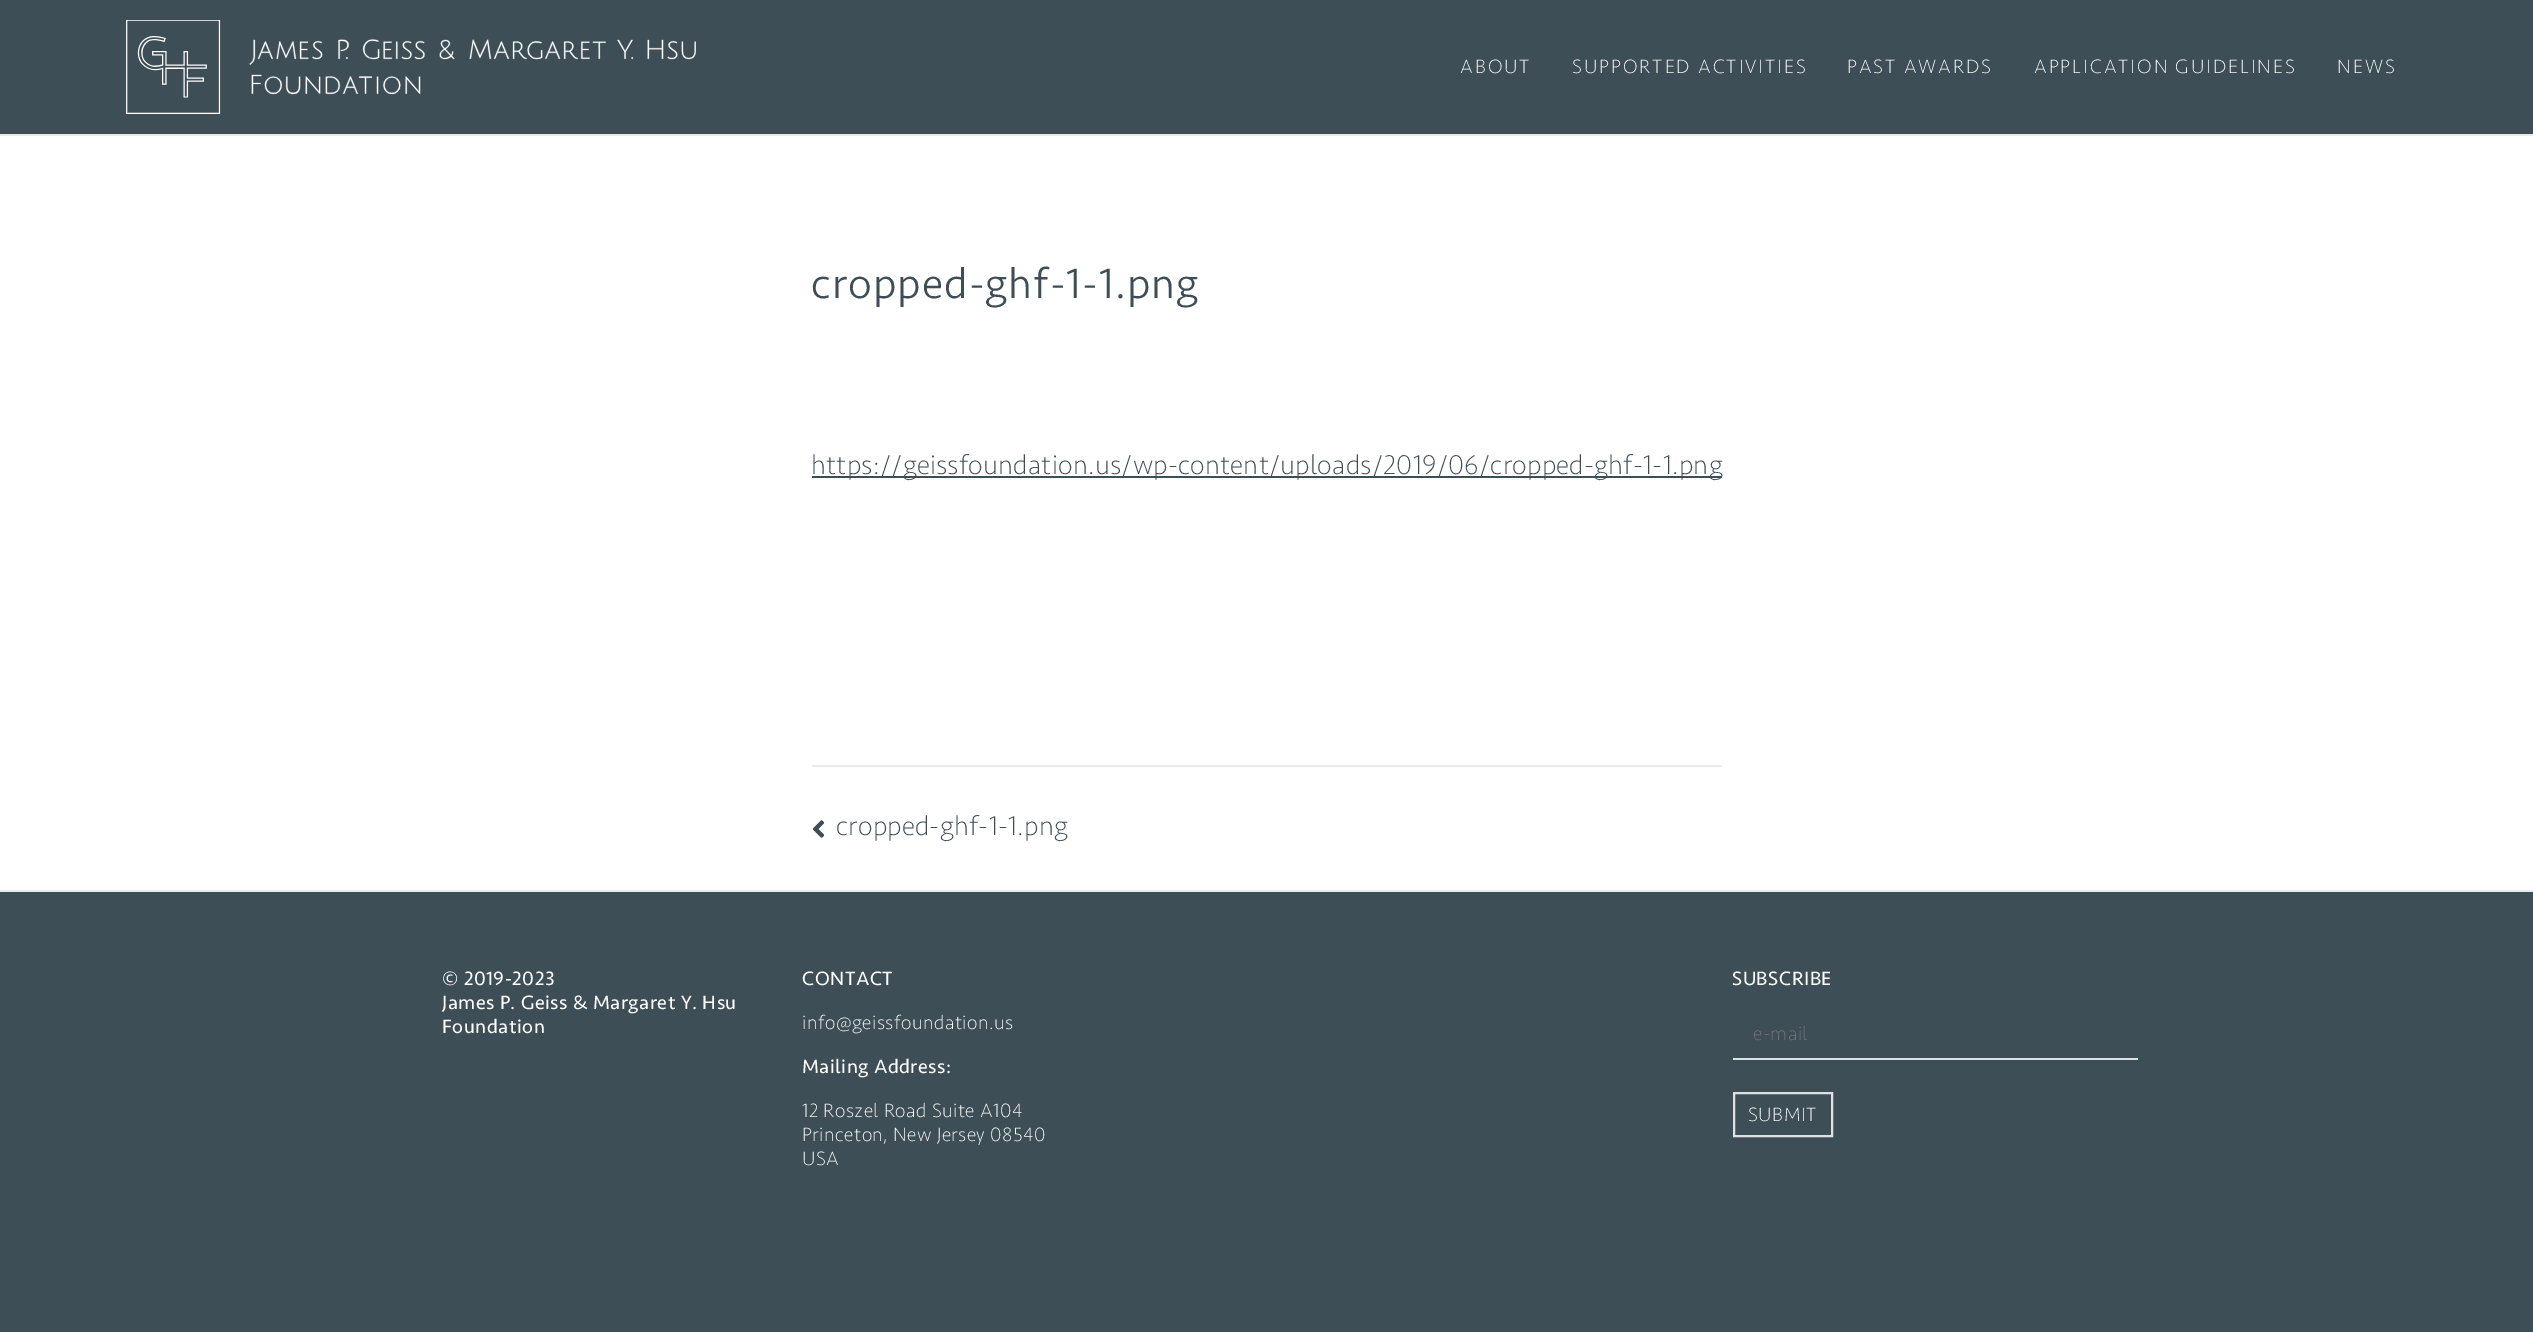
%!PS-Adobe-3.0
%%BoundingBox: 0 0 2533 1332
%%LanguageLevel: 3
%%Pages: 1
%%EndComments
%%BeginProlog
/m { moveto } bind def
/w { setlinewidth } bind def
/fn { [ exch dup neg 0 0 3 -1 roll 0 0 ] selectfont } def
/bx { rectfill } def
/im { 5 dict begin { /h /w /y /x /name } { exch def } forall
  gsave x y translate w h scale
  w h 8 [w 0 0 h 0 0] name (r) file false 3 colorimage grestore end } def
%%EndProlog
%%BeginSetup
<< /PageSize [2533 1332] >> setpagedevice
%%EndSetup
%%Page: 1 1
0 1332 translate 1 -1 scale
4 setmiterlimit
0.239 0.306 0.337 setrgbcolor
0 0 2533 1332 bx
1 setgray
0 136 2533 754 bx
0.914 0.925 0.937 setrgbcolor
0 134 2533 2 bx
(image0.raw) 126 20 570 94 im
/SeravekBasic-ExtraLight 20 fn
1 setgray
1460 73 m 2 0 (ABOUT) ashow
1572 73 m 2 0 (SUPPORTED ACTIVITIES) ashow
1847 73 m 2 0 (PAST AWARDS) ashow
2034 73 m 2 0 (APPLICATION GUIDELINES) ashow
2337 73 m 2 0 (NEWS) ashow
/SeravekBasic-Light 44 fn
0.239 0.306 0.337 setrgbcolor
811 298 m 1.1 0 (cropped-ghf-1-1.png) ashow
812 476 910 2 bx
/SeravekBasic-ExtraLight 28 fn
811 474 m 0.28 0 (https://geissfoundation.us/wp-content/uploads/2019/06/cropped-ghf-1-1.png) ashow
0.914 0.925 0.937 setrgbcolor
812 765 910 2 bx
(image1.raw) 812 820 13 18 im
0.239 0.306 0.337 setrgbcolor
836 835 m 0.28 0 (cropped-ghf-1-1.png) ashow
0.914 0.925 0.937 setrgbcolor
0 890 2533 2 bx
/SeravekBasic-Regular 20 fn
1 setgray
442 985 m 0.5 0 (© 2019-2023) ashow
442 1009 m 0.5 0 (James P. Geiss & Margaret Y. Hsu) ashow
442 1033 m 0.5 0 (Foundation) ashow
802 985 m 0.5 0 (CONTACT) ashow
/SeravekBasic-ExtraLight 20 fn
802 1029 m 0.5 0 (info@geissfoundation.us) ashow
/SeravekBasic-Regular 20 fn
802 1073 m 0.5 0 (Mailing Address:) ashow
/SeravekBasic-ExtraLight 20 fn
802 1117 m 0.5 0 (12 Roszel Road Suite A104) ashow
802 1141 m 0.5 0 (Princeton, New Jersey 08540) ashow
802 1165 m 0.5 0 (USA) ashow
/SeravekBasic-Regular 20 fn
1732 985 m 0.5 0 (SUBSCRIBE) ashow
0.871 0.886 0.902 setrgbcolor
1733 1058 405 2 bx
/SeravekBasic-ExtraLight 20 fn
0.459 setgray
1753 1040 m 0.5 0 (e-mail) ashow
0.871 0.886 0.902 setrgbcolor
2 w
1734 1093 98 43 rectstroke
1 setgray
1748 1121 m 0.5 0 (SUBMIT) ashow
showpage
%%EOF
